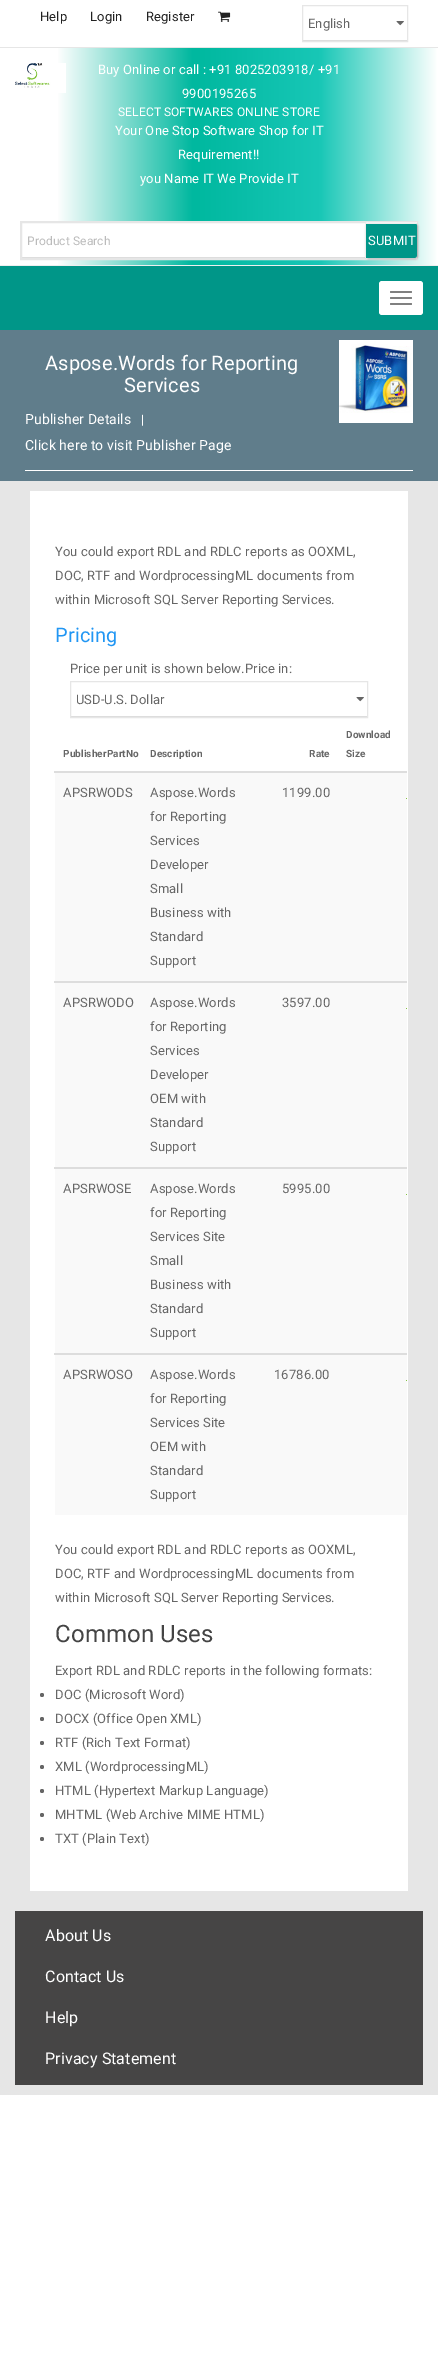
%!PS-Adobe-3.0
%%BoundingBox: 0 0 438 2356
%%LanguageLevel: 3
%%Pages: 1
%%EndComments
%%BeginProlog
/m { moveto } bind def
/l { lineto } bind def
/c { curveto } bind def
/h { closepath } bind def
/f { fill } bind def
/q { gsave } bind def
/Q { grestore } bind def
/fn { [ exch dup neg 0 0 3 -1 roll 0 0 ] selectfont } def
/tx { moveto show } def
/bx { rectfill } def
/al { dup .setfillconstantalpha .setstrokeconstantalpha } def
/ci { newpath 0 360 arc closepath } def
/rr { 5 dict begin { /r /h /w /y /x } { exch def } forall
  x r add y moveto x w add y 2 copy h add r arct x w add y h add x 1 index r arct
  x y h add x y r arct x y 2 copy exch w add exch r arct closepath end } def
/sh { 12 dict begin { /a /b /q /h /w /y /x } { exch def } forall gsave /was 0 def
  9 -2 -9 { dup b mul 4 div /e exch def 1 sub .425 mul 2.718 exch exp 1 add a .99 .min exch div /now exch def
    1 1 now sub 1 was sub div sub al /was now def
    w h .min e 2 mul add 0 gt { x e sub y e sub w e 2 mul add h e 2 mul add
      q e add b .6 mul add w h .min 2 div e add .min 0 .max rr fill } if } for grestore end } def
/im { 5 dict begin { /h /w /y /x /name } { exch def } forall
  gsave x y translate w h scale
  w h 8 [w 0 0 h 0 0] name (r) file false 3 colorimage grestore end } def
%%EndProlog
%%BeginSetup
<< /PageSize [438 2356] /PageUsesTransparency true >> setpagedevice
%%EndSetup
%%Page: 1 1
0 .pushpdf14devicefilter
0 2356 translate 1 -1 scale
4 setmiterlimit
1 setgray
0 0 438 2356 bx
0.902 setgray
0 47 438 1 bx
/Roboto-Regular 13 fn
0.133 setgray
40 21 m 0.1 0 (Help) ashow
90 21 m 0.1 0 (Login) ashow
146 21 m 0.1 0 (Register) ashow
(image0.raw) 218 11 13 11 im
(image1.raw) 396 21 8 5 im
0.867 setgray
303 40 104 1 bx
0.902 setgray
302.5 5.5 105 36 rectstroke
0.4 setgray
(English) 308 28 tx
q 58 48 m 437 48 l 437 265 l 58 265 l h clip newpath
<< /ShadingType 2 /ColorSpace /DeviceRGB /Coords [0 157 438 157] /Extend [true true] /Function << /FunctionType 3 /Domain [0 1] /Functions [<< /FunctionType 2 /Domain [0 1] /C0 [1 1 1] /C1 [1 1 1] /N 1 >> << /FunctionType 2 /Domain [0 1] /C0 [1 1 1] /C1 [0 0.722 0.624] /N 1 >> << /FunctionType 2 /Domain [0 1] /C0 [0 0.722 0.624] /C1 [0.094 0.78 0.714] /N 1 >> << /FunctionType 2 /Domain [0 1] /C0 [0.094 0.78 0.714] /C1 [1 1 1] /N 1 >>] /Bounds [0.13 0.44 0.73] /Encode [0 1 0 1 0 1 0 1] >> >> shfill Q
(image2.raw) 15 63 51 30 im
1 setgray
98 74 m 0.1 0 (Buy Online or call : +91 8025203918/ +91) ashow
182 98 m 0.1 0 (9900195265) ashow
/Roboto-Regular 12 fn
118 116 m 0.1 0 (SELECT SOFTWARES ONLINE STORE) ashow
/Roboto-Regular 13 fn
115 135 m 0.1 0 (Your One Stop Software Shop for IT) ashow
178 159 m 0.1 0 (Requirement!!) ashow
140 183 m 0.1 0 (you Name IT We Provide IT) ashow
58 222 359 37 bx
0.902 setgray
20.5 221.5 397 38 rectstroke
0.867 setgray
22 257 343 1 bx
0.902 setgray
21.5 222.5 344 36 rectstroke
/Roboto-Regular 12 fn
0.733 setgray
27 245 m 0.1 0 (Product Search) ashow
0 setgray
366 224 52 35 3 1 0.3 sh
0 0.588 0.533 setrgbcolor
365 223 m 414 223 l 415.5 223 417 224.5 417 226 c 417 255 l 417 256.5 415.5 258 414 258 c 365 258 l h f
0.933 setgray
365 223 51 1 bx
365 223 1 35 bx
/Roboto-Regular 13 fn
1 setgray
368 245 m 0.1 0 (SUBMIT) ashow
0.933 setgray
0 265 438 1 bx
0 0.588 0.533 setrgbcolor
0 266 438 64 bx
1 setgray
379 281 44 34 3 rr f
0.502 setgray
390 291 22 2 1 rr f
390 297 22 2 1 rr f
390 303 22 2 1 rr f
0.376 0.49 0.545 setrgbcolor
0 330 438 151 bx
/Roboto-Regular 20 fn
1 setgray
45 370 m 0.1 0 (Aspose.Words for Reporting) ashow
124 392 m 0.1 0 (Services) ashow
/Roboto-Regular 14 fn
25 424 m 0.1 0 (Publisher Details) ashow
/Roboto-Regular 13 fn
141 424 m 0.1 0 (|) ashow
/Roboto-Regular 14 fn
25 450 m 0.1 0 (Click here to visit Publisher Page) ashow
(image3.raw) 339 340 74 83 im
25 470 388 1 bx
0.902 setgray
0 481 438 1614 bx
1 setgray
30 491 378 1400 bx
/Roboto-Regular 13 fn
0.4 setgray
55 556 m 0.1 0 (You could export RDL and RDLC reports as OOXML,) ashow
55 580 m 0.1 0 (DOC, RTF and WordprocessingML documents from) ashow
55 604 m 0.1 0 (within Microsoft SQL Server Reporting Services.) ashow
/Roboto-Regular 20 fn
0.129 0.588 0.953 setrgbcolor
55 642 m 0.1 0 (Pricing) ashow
/Roboto-Regular 13 fn
0.4 setgray
70 673 m 0.1 0 (Price per unit is shown below.Price in:) ashow
(image1.raw) 356 697 8 5 im
0.867 setgray
71 716 296 1 bx
0.902 setgray
70.5 681.5 297 36 rectstroke
0.4 setgray
(USD-U.S. Dollar) 76 704 tx
/Roboto-Bold 10 fn
63 757 m 0.1 0 (PublisherPartNo) ashow
150 757 m 0.1 0 (Description) ashow
309 757 m 0.1 0 (Rate) ashow
346 738 m 0.1 0 (Download) ashow
346 757 m 0.1 0 (Size) ashow
0.867 setgray
54 771 353 2 bx
0.976 setgray
55 773 352 208 bx
/Roboto-Regular 13 fn
0.4 setgray
63 797 m 0.1 0 (APSRWODS) ashow
150 797 m 0.1 0 (Aspose.Words) ashow
150 821 m 0.1 0 (for Reporting) ashow
150 845 m 0.1 0 (Services) ashow
150 869 m 0.1 0 (Developer) ashow
150 893 m 0.1 0 (Small) ashow
150 917 m 0.1 0 (Business with) ashow
150 941 m 0.1 0 (Standard) ashow
150 965 m 0.1 0 (Support) ashow
282 797 m 0.1 0 (1199.00) ashow
0.518 0.769 0.255 setrgbcolor
406 798 1 1 bx
0.867 setgray
54 981 353 2 bx
0.976 setgray
55 983 352 184 bx
0.4 setgray
63 1007 m 0.1 0 (APSRWODO) ashow
150 1007 m 0.1 0 (Aspose.Words) ashow
150 1031 m 0.1 0 (for Reporting) ashow
150 1055 m 0.1 0 (Services) ashow
150 1079 m 0.1 0 (Developer) ashow
150 1103 m 0.1 0 (OEM with) ashow
150 1127 m 0.1 0 (Standard) ashow
150 1151 m 0.1 0 (Support) ashow
282 1007 m 0.1 0 (3597.00) ashow
0.518 0.769 0.255 setrgbcolor
406 1008 1 1 bx
0.867 setgray
54 1167 353 2 bx
0.976 setgray
55 1169 352 184 bx
0.4 setgray
63 1193 m 0.1 0 (APSRWOSE) ashow
150 1193 m 0.1 0 (Aspose.Words) ashow
150 1217 m 0.1 0 (for Reporting) ashow
150 1241 m 0.1 0 (Services Site) ashow
150 1265 m 0.1 0 (Small) ashow
150 1289 m 0.1 0 (Business with) ashow
150 1313 m 0.1 0 (Standard) ashow
150 1337 m 0.1 0 (Support) ashow
282 1193 m 0.1 0 (5995.00) ashow
0.518 0.769 0.255 setrgbcolor
406 1194 1 1 bx
0.867 setgray
54 1353 353 2 bx
0.976 setgray
55 1355 352 160 bx
0.4 setgray
63 1379 m 0.1 0 (APSRWOSO) ashow
150 1379 m 0.1 0 (Aspose.Words) ashow
150 1403 m 0.1 0 (for Reporting) ashow
150 1427 m 0.1 0 (Services Site) ashow
150 1451 m 0.1 0 (OEM with) ashow
150 1475 m 0.1 0 (Standard) ashow
150 1499 m 0.1 0 (Support) ashow
274 1379 m 0.1 0 (16786.00) ashow
0.518 0.769 0.255 setrgbcolor
406 1380 1 1 bx
0.4 setgray
55 1554 m 0.1 0 (You could export RDL and RDLC reports as OOXML,) ashow
55 1578 m 0.1 0 (DOC, RTF and WordprocessingML documents from) ashow
55 1602 m 0.1 0 (within Microsoft SQL Server Reporting Services.) ashow
/Roboto-Regular 24 fn
0.267 setgray
55 1642 m 0.1 0 (Common Uses) ashow
/Roboto-Regular 13 fn
0.4 setgray
55 1675 m 0.1 0 (Export RDL and RDLC reports in the following formats:) ashow
42 1695 2 ci f
55 1699 m 0.1 0 (DOC \(Microsoft Word\)) ashow
42 1719 2 ci f
55 1723 m 0.1 0 (DOCX \(Office Open XML\)) ashow
42 1743 2 ci f
55 1747 m 0.1 0 (RTF \(Rich Text Format\)) ashow
42 1767 2 ci f
55 1771 m 0.1 0 (XML \(WordprocessingML\)) ashow
42 1791 2 ci f
55 1795 m 0.1 0 (HTML \(Hypertext Markup Language\)) ashow
42 1815 2 ci f
55 1819 m 0.1 0 (MHTML \(Web Archive MIME HTML\)) ashow
42 1839 2 ci f
55 1843 m 0.1 0 (TXT \(Plain Text\)) ashow
0.275 0.271 0.271 setrgbcolor
15 1911 408 174 bx
/Roboto-Regular 16 fn
1 setgray
45 1941 m 0.1 0 (About Us) ashow
45 1982 m 0.1 0 (Contact Us) ashow
45 2023 m 0.1 0 (Help) ashow
45 2064 m 0.1 0 (Privacy Statement) ashow
.poppdf14devicefilter showpage
%%EOF
